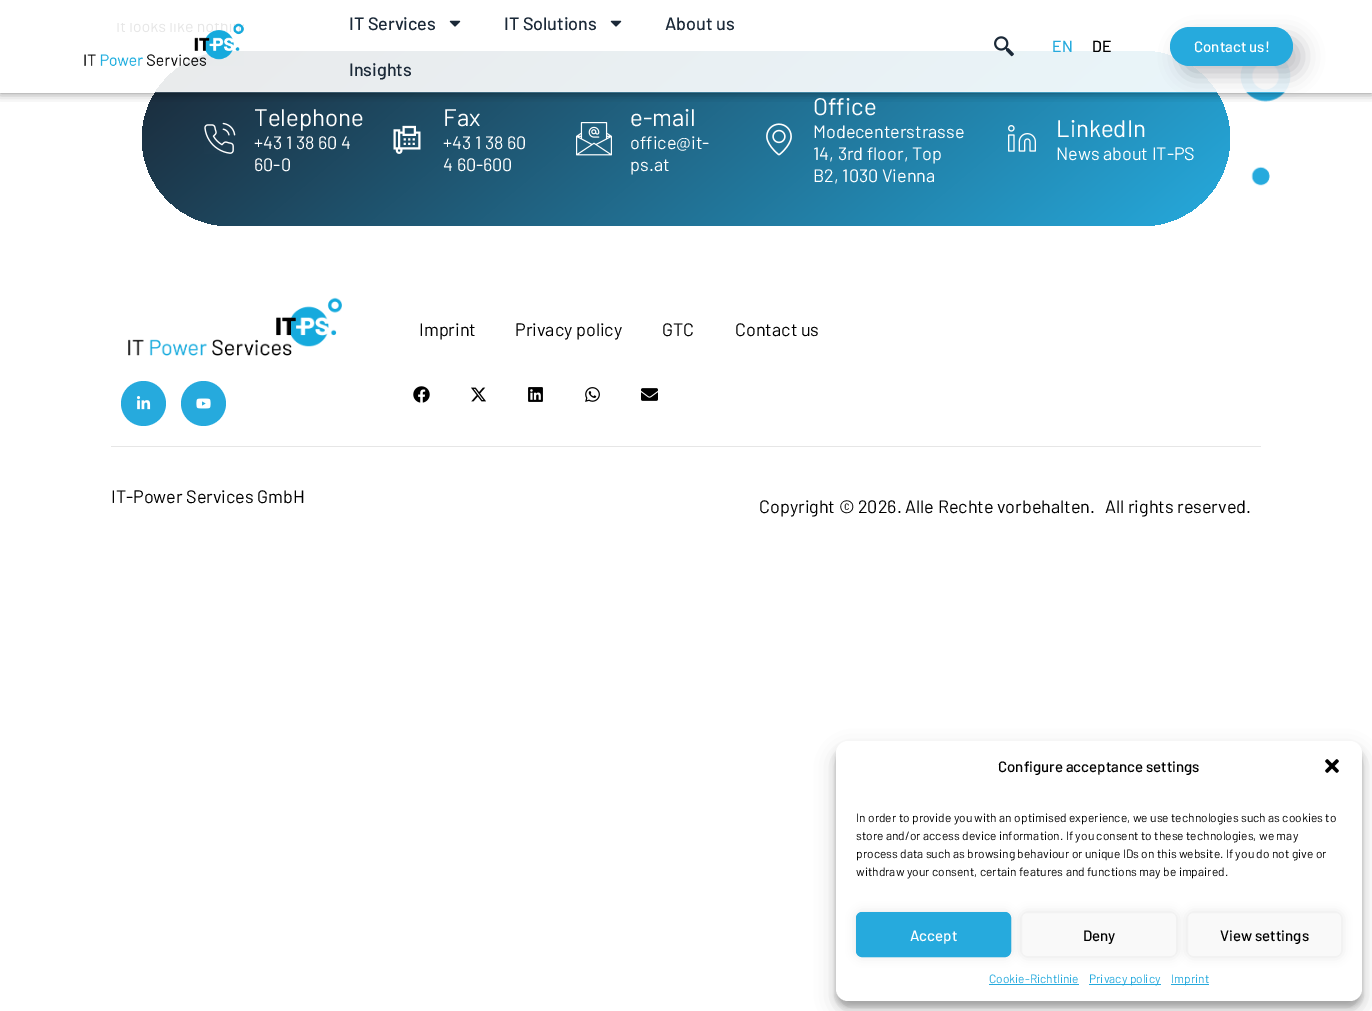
%!PS-Adobe-3.0
%%BoundingBox: 0 0 1372 1011
%%LanguageLevel: 3
%%Pages: 1
%%EndComments
%%BeginProlog
/f { fill } bind def
/S { stroke } bind def
/q { gsave } bind def
/Q { grestore } bind def
/fn { [ exch dup neg 0 0 3 -1 roll 0 0 ] selectfont } def
/tx { moveto show } def
/bx { rectfill } def
/al { dup .setfillconstantalpha .setstrokeconstantalpha } def
/ci { newpath 0 360 arc closepath } def
/rr { 5 dict begin { /r /h /w /y /x } { exch def } forall
  x r add y moveto x w add y 2 copy h add r arct x w add y h add x 1 index r arct
  x y h add x y r arct x y 2 copy exch w add exch r arct closepath end } def
/sh { 12 dict begin { /a /b /q /h /w /y /x } { exch def } forall gsave /was 0 def
  9 -2 -9 { dup b mul 4 div /e exch def 1 sub .425 mul 2.718 exch exp 1 add a .99 .min exch div /now exch def
    1 1 now sub 1 was sub div sub al /was now def
    w h .min e 2 mul add 0 gt { x e sub y e sub w e 2 mul add h e 2 mul add
      q e add b .6 mul add w h .min 2 div e add .min 0 .max rr fill } if } for grestore end } def
/im { 5 dict begin { /h /w /y /x /name } { exch def } forall
  gsave x y translate w h scale
  w h 8 [w 0 0 h 0 0] name (r) file false 3 colorimage grestore end } def
%%EndProlog
%%BeginSetup
<< /PageSize [1372 1011] /PageUsesTransparency true >> setpagedevice
%%EndSetup
%%Page: 1 1
0 .pushpdf14devicefilter
0 1011 translate 1 -1 scale
4 setmiterlimit
1 setgray
0 0 1372 1011 bx
q 142 51 1088 175 87.5 rr clip newpath
<< /ShadingType 2 /ColorSpace /DeviceRGB /Coords [954 458 418 -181] /Extend [true true] /Function << /FunctionType 2 /Domain [0 1] /C0 [0.149 0.667 0.867] /C1 [0.106 0.161 0.22] /N 1 >> >> shfill Q
(image8.raw) 1240 61 51 125 im
q
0 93 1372 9 rectclip
0 setgray
0 0 1372 93 0 5 0.5 sh
Q
0.14 al
155 92 1130 1 bx
0.9 al
155 51 1136 41 bx
1 al
(image0.raw) 84 23 160 43 im
/Barlow-Medium 18 fn
0.106 0.161 0.22 setrgbcolor
(IT Services) 349 30 tx
(image1.raw) 449 20 12 7 im
(IT Solutions) 504 30 tx
(image1.raw) 610 20 12 7 im
(About us) 665 30 tx
(Insights) 349 76 tx
(image2.raw) 994 36 20 21 im
/Barlow-Medium 16 fn
0.149 0.667 0.867 setrgbcolor
(EN) 1052 52 tx
0 setgray
(DE) 1092 52 tx
0.14 al
1 setgray
156 91 1128 1 bx
1 al
0.082 0.086 0.157 setrgbcolor
1180 37 123 39 19.5 10 0.25 sh
0.149 0.667 0.867 setrgbcolor
1170 27 123 39 19.5 rr f
/Barlow-Medium 15 fn
1 setgray
(Contact us!) 1194 52 tx
(image3.raw) 204 122 32 32 im
/Barlow-Regular 24 fn
(Telephone) 254 126 tx
/Barlow-Regular 18 fn
(+43 1 38 60 4) 254 149 tx
(60-0) 254 171 tx
(image4.raw) 393 125 28 29 im
/Barlow-Regular 24 fn
(Fax) 443 126 tx
/Barlow-Regular 18 fn
(+43 1 38 60) 443 149 tx
(4 60-600) 443 171 tx
(image5.raw) 576 122 36 34 im
/Barlow-Regular 24 fn
(e-mail) 630 126 tx
/Barlow-Regular 18 fn
(office@it-) 630 149 tx
(ps.at) 630 171 tx
(image6.raw) 766 123 26 33 im
/Barlow-Regular 24 fn
(Office) 813 115 tx
/Barlow-Regular 18 fn
(Modecenterstrasse) 813 138 tx
(14, 3rd floor, Top) 813 160 tx
(B2, 1030 Vienna) 813 182 tx
(image7.raw) 1008 125 28 27 im
/Barlow-Regular 24 fn
(LinkedIn) 1056 137 tx
/Barlow-Regular 18 fn
(News about IT-PS) 1056 160 tx
(image9.raw) 128 297 214 59 im
0.149 0.667 0.867 setrgbcolor
143.5 403.5 22.5 ci f
(image10.raw) 137 396 14 14 im
203.5 403.5 22.5 ci f
(image11.raw) 196 398 15 11 im
0 setgray
(Imprint) 419 336 tx
(Privacy policy) 515 336 tx
(GTC) 662 336 tx
(Contact us) 735 336 tx
(image12.raw) 413 386 17 17 im
(image13.raw) 471 387 15 15 im
(image14.raw) 528 387 15 15 im
(image15.raw) 585 387 15 15 im
(image16.raw) 641 388 17 13 im
0.902 setgray
111 446 1150 1 bx
0 setgray
(IT-Power Services GmbH) 111 503 tx
(Copyright © 2026. Alle Rechte vorbehalten.) 759 513 tx
(All rights reserved.) 1105 513 tx
836 747 526 260 12 3 0.23 sh
836 751 526 260 12 10 0.19 sh
1 setgray
836 741 526 260 12 rr f
/Barlow-Medium 15 fn
0 setgray
(Configure acceptance settings) 998 772 tx
(image17.raw) 1325 759 14 14 im
/Barlow-Regular 12 fn
(In order to provide you with an optimised experience, we use technologies such as cookies to) 856 822 tx
(store and/or access device information. If you consent to these technologies, we may) 856 840 tx
(process data such as browsing behaviour or unique IDs on this website. If you do not give or) 856 858 tx
(withdraw your consent, certain features and functions may be impaired.) 856 876 tx
856 912 155 45 6 5 0.1 sh
0.149 0.667 0.867 setrgbcolor
856.5 912.5 154 44 5.5 rr q f Q
S
/Barlow-Medium 15 fn
1 setgray
(Accept) 910 941 tx
0 setgray
1021 912 156 45 6 5 0.1 sh
0.976 setgray
1021.5 912.5 155 44 5.5 rr q f Q
0.949 setgray
S
0 setgray
(Deny) 1083 941 tx
1187 912 155 45 6 5 0.1 sh
0.976 setgray
1187.5 912.5 154 44 5.5 rr q f Q
0.949 setgray
S
0 setgray
(View settings) 1220 941 tx
/Barlow-Regular 12 fn
0.149 0.667 0.867 setrgbcolor
(Cookie-Richtlinie) 989 983 tx
989 984 90 1 bx
1089 984 72 1 bx
(Privacy policy) 1089 983 tx
1171 984 38 1 bx
(Imprint) 1171 983 tx
.poppdf14devicefilter showpage
%%EOF
